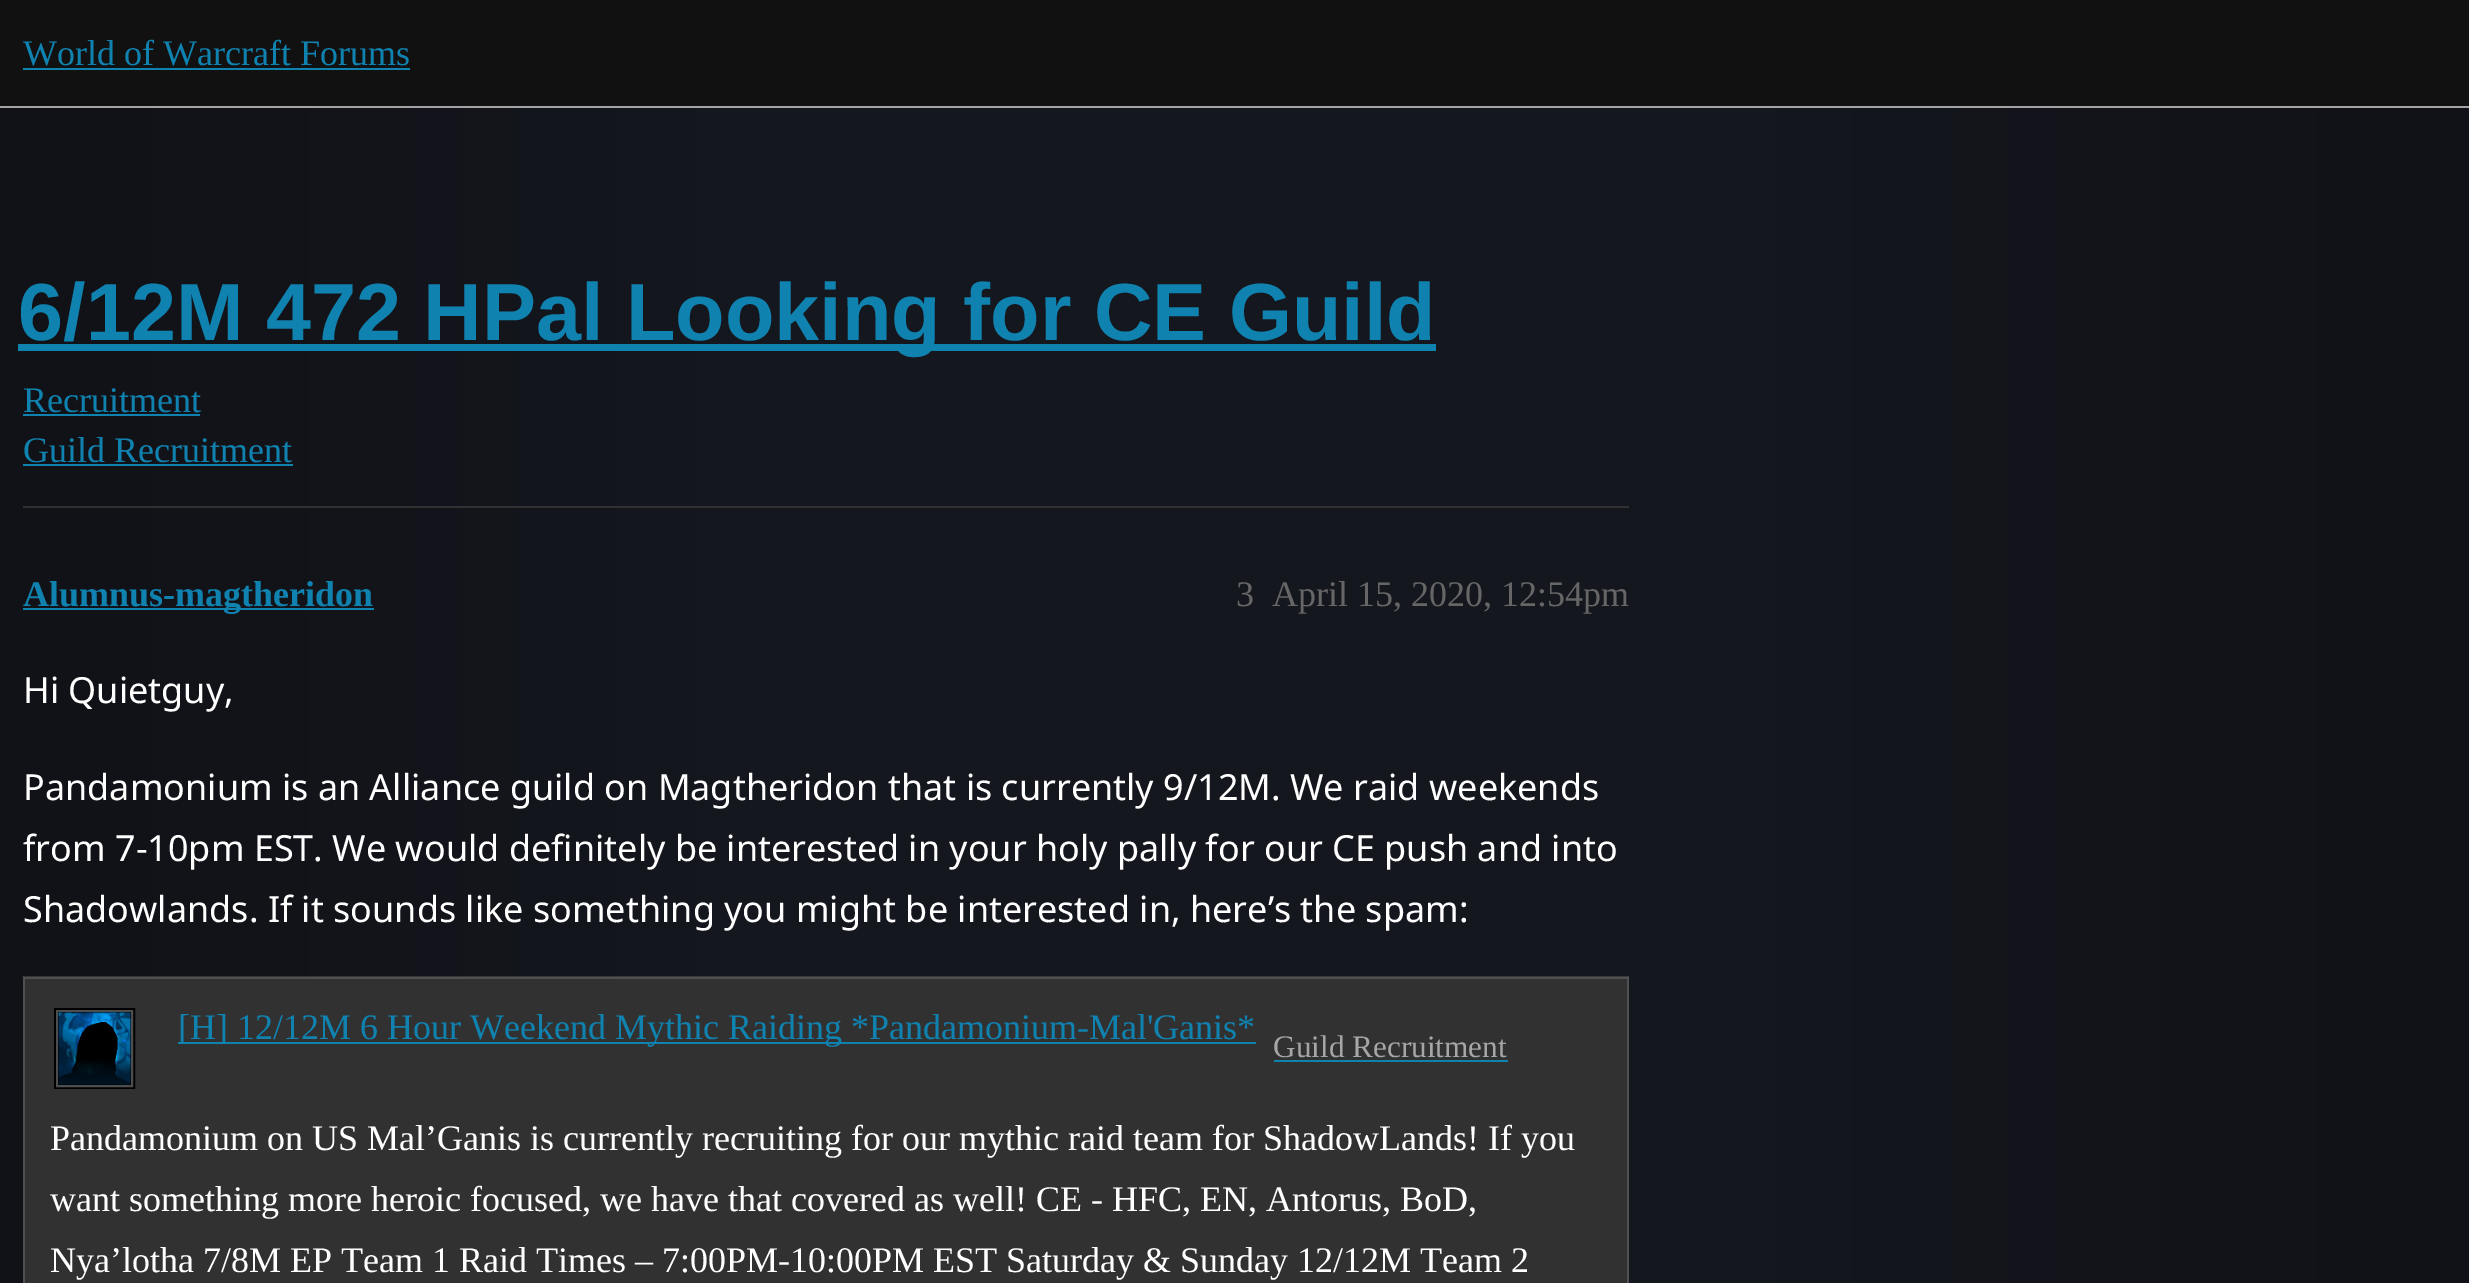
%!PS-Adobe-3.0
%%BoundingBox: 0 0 2469 1283
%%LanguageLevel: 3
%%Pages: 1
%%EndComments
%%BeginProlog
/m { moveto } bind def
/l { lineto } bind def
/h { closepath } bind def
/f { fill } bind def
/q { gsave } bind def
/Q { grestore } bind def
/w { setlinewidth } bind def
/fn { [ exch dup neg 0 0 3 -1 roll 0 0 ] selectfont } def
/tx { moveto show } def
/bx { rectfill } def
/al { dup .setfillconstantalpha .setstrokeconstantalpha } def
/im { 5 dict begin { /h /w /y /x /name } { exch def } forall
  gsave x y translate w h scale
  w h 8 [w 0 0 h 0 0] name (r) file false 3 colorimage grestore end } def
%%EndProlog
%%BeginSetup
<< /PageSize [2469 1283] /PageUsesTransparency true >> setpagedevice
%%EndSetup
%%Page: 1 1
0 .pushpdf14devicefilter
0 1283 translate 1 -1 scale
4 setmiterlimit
1 setgray
0 0 2469 1283 bx
q 0 108 m 2469 108 l 2469 1283 l 0 1283 l h clip newpath
<< /ShadingType 2 /ColorSpace /DeviceRGB /Coords [0 1059 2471 1059] /Extend [true true] /Function << /FunctionType 3 /Domain [0 1] /Functions [<< /FunctionType 2 /Domain [0 1] /C0 [0.067 0.071 0.09] /C1 [0.082 0.09 0.118] /N 1 >> << /FunctionType 2 /Domain [0 1] /C0 [0.082 0.09 0.118] /C1 [0.082 0.09 0.118] /N 1 >> << /FunctionType 2 /Domain [0 1] /C0 [0.082 0.09 0.118] /C1 [0.067 0.071 0.09] /N 1 >>] /Bounds [0.3 0.7] /Encode [0 1 0 1 0 1] >> >> shfill Q
0.067 setgray
0 0 2469 106 bx
0.643 setgray
0 106 2469 2 bx
/LiberationSerif-Regular 36 fn
0.059 0.51 0.686 setrgbcolor
(World of Warcraft Forums) 23 65 tx
23 68 387 2 bx
18 344 1418 7 bx
/LiberationSans-Bold 81 fn
(6/12M 472 HPal Looking for CE Guild) 18 340 tx
/LiberationSerif-Regular 36 fn
(Recruitment) 23 412 tx
23 414 177 2 bx
(Guild Recruitment) 23 462 tx
23 464 270 2 bx
0.192 setgray
23 506 1606 2 bx
0.059 0.51 0.686 setrgbcolor
23 608 351 2 bx
/LiberationSerif-Bold 36 fn
(Alumnus-magtheridon) 23 606 tx
/LiberationSerif-Regular 36 fn
0.4 setgray
(3) 1236 606 tx
(April 15, 2020, 12:54pm) 1272 606 tx
/NotoSans-Regular 36 fn
1 setgray
(Hi Quietguy,) 23 703 tx
(Pandamonium is an Alliance guild on Magtheridon that is currently 9/12M. We raid weekends) 23 800 tx
(from 7-10pm EST. We would definitely be interested in your holy pally for our CE push and into) 23 861 tx
(Shadowlands. If it sounds like something you might be interested in, here’s the spam:) 23 922 tx
0.192 setgray
23 977 1606 112 bx
0.15 al
1 setgray
22 976 m 1629 976 l 1627 979 l 25 979 l h f
1629 976 m 1629 1089 l 1627 1089 l 1627 979 l h f
q
23 659 1606 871 rectclip
22 1089 m 22 976 l 25 979 l 25 1089 l h f
Q
1 al
0 setgray
5 w
56.5 1010.5 76 76 rectstroke
0.302 setgray
2 w
57 1011 75 75 rectstroke
(image0.raw) 58 1012 73 73 im
0.059 0.51 0.686 setrgbcolor
178 1042 1078 2 bx
/LiberationSerif-Regular 36 fn
([H] 12/12M 6 Hour Weekend Mythic Raiding *Pandamonium-Mal'Ganis*) 178 1039 tx
/LiberationSerif-Regular 31.25 fn
0.651 setgray
(Guild Recruitment) 1273 1057 tx
0.059 0.51 0.686 setrgbcolor
1274 1060 234 2 bx
0.192 setgray
25 1089 1602 194 bx
0.314 setgray
1629 1089 m 1629 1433 l 1627 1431 l 1627 1089 l h f
q
23 659 1606 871 rectclip
22 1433 m 22 1089 l 25 1089 l 25 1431 l h f
Q
/LiberationSerif-Regular 36 fn
1 setgray
(Pandamonium on US Mal’Ganis is currently recruiting for our mythic raid team for ShadowLands! If you) 50 1150 tx
(want something more heroic focused, we have that covered as well! CE - HFC, EN, Antorus, BoD,) 50 1211 tx
(Nya’lotha 7/8M EP Team 1 Raid Times – 7:00PM-10:00PM EST Saturday & Sunday 12/12M Team 2) 50 1272 tx
.poppdf14devicefilter showpage
%%EOF
